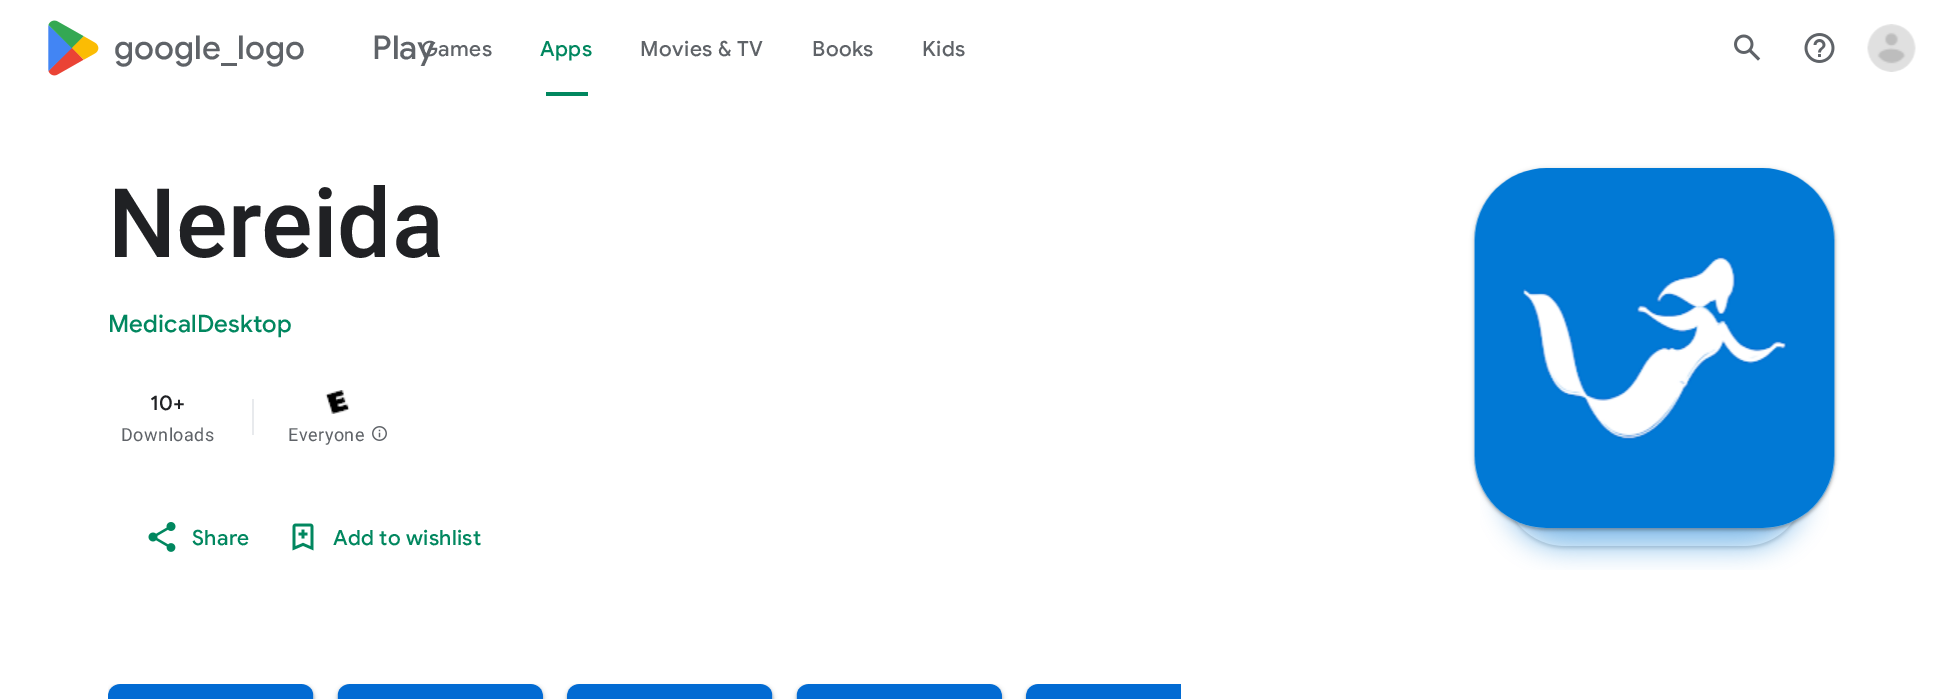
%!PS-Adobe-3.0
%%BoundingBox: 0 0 1942 699
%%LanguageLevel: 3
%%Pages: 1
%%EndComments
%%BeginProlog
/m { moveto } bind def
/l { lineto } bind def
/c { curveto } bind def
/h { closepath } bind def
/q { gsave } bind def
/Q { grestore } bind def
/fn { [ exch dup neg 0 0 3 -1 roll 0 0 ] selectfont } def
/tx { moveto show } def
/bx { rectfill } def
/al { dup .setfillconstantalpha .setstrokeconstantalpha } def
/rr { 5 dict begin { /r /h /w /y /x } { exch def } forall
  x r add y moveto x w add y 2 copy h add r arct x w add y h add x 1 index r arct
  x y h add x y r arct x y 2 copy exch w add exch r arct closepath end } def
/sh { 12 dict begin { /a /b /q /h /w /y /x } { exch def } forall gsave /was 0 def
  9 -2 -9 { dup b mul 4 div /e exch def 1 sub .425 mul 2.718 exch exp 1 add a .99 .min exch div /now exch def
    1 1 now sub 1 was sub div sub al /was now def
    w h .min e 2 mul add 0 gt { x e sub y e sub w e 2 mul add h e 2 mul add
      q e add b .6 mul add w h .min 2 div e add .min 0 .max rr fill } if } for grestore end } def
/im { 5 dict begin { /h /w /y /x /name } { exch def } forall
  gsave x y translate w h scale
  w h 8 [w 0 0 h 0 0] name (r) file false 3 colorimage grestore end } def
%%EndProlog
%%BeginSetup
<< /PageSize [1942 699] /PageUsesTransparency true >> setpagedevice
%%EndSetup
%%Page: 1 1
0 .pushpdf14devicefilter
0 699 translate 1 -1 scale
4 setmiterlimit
1 setgray
0 0 1942 699 bx
(image0.raw) 48 20 51 56 im
/GoogleSans-Medium 33 fn
0.373 0.388 0.408 setrgbcolor
114 59 m 82 0 32 (google_logo) widthshow
372 59 m 82 0 32 (Play) widthshow
/GoogleSans-Medium 21 fn
421 56 m 0.4 0 (Games) ashow
0.004 0.529 0.373 setrgbcolor
540 56 m 0.4 0 (Apps) ashow
546 92 42 4 bx
0.373 0.388 0.408 setrgbcolor
640 56 m 0.4 0 (Movies & TV) ashow
812 56 m 0.4 0 (Books) ashow
922 56 m 0.4 0 (Kids) ashow
(image1.raw) 1734 34 27 27 im
(image2.raw) 1804 33 31 30 im
(image3.raw) 1867 24 49 48 im
/Roboto-Medium 96 fn
0.125 0.129 0.141 setrgbcolor
(Nereida) 108 257 tx
/GoogleSans-Medium 24 fn
0.004 0.529 0.373 setrgbcolor
108 332 m 0.1 0 (MedicalDesktop) ashow
/GoogleSans-Medium 21 fn
0.125 0.129 0.141 setrgbcolor
150 410 m 0.4 0 (10+) ashow
/Roboto-Regular 18 fn
0.373 0.388 0.408 setrgbcolor
121 441 m 0.5 0 (Downloads) ashow
0.91 0.918 0.929 setrgbcolor
252 399 2 36 bx
(image4.raw) 325 390 25 24 im
0.373 0.388 0.408 setrgbcolor
288 441 m 0.5 0 (Everyone) ashow
(image5.raw) 372 426 15 15 im
q
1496 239 m 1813 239 l 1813 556 l 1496 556 l h 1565 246 m 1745 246 l 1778 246 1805 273 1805 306 c 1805 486 l 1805 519 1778 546 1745 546 c 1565 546 l 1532 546 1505 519 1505 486 c 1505 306 l 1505 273 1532 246 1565 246 c h eoclip newpath
0.62 0.627 0.631 setrgbcolor
1503 246 303 303 62 2 0.15 sh
Q
q
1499 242 m 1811 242 l 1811 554 l 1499 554 l h 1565 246 m 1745 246 l 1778 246 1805 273 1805 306 c 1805 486 l 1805 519 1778 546 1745 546 c 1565 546 l 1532 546 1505 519 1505 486 c 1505 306 l 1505 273 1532 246 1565 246 c h eoclip newpath
0.62 0.627 0.631 setrgbcolor
1505 248 300 300 60 1.5 0.3 sh
Q
(image7.raw) 1481 484 347 86 im
0.235 0.251 0.263 setrgbcolor
1473 168 363 363 74 2 0.15 sh
1475 170 360 360 72 1.5 0.3 sh
(image6.raw) 1474 168 361 360 im
(image8.raw) 148 522 28 30 im
/GoogleSans-Medium 21 fn
0.004 0.529 0.373 setrgbcolor
192 545 m 0.25 0 (Share) ashow
(image9.raw) 292 523 22 28 im
333 545 m 0.25 0 (Add to wishlist) ashow
q
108 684 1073 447 rectclip
0.235 0.251 0.263 setrgbcolor
107 684 208 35 14 2 0.15 sh
108 686 206 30 12 1.5 0.3 sh
Q
(image10.raw) 108 684 206 15 im
q
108 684 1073 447 rectclip
0.235 0.251 0.263 setrgbcolor
336 684 209 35 14 2 0.15 sh
Q
0.235 0.251 0.263 setrgbcolor
338 686 205 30 12 1.5 0.3 sh
(image11.raw) 337 684 206 15 im
q
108 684 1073 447 rectclip
566 684 208 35 14 2 0.15 sh
Q
567 686 206 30 12 1.5 0.3 sh
(image10.raw) 567 684 206 15 im
q
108 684 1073 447 rectclip
795 684 209 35 14 2 0.15 sh
Q
797 686 205 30 12 1.5 0.3 sh
(image12.raw) 796 684 206 15 im
q
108 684 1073 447 rectclip
1025 684 208 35 14 2 0.15 sh
1026 686 206 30 12 1.5 0.3 sh
Q
(image13.raw) 1026 684 155 15 im
.poppdf14devicefilter showpage
%%EOF
